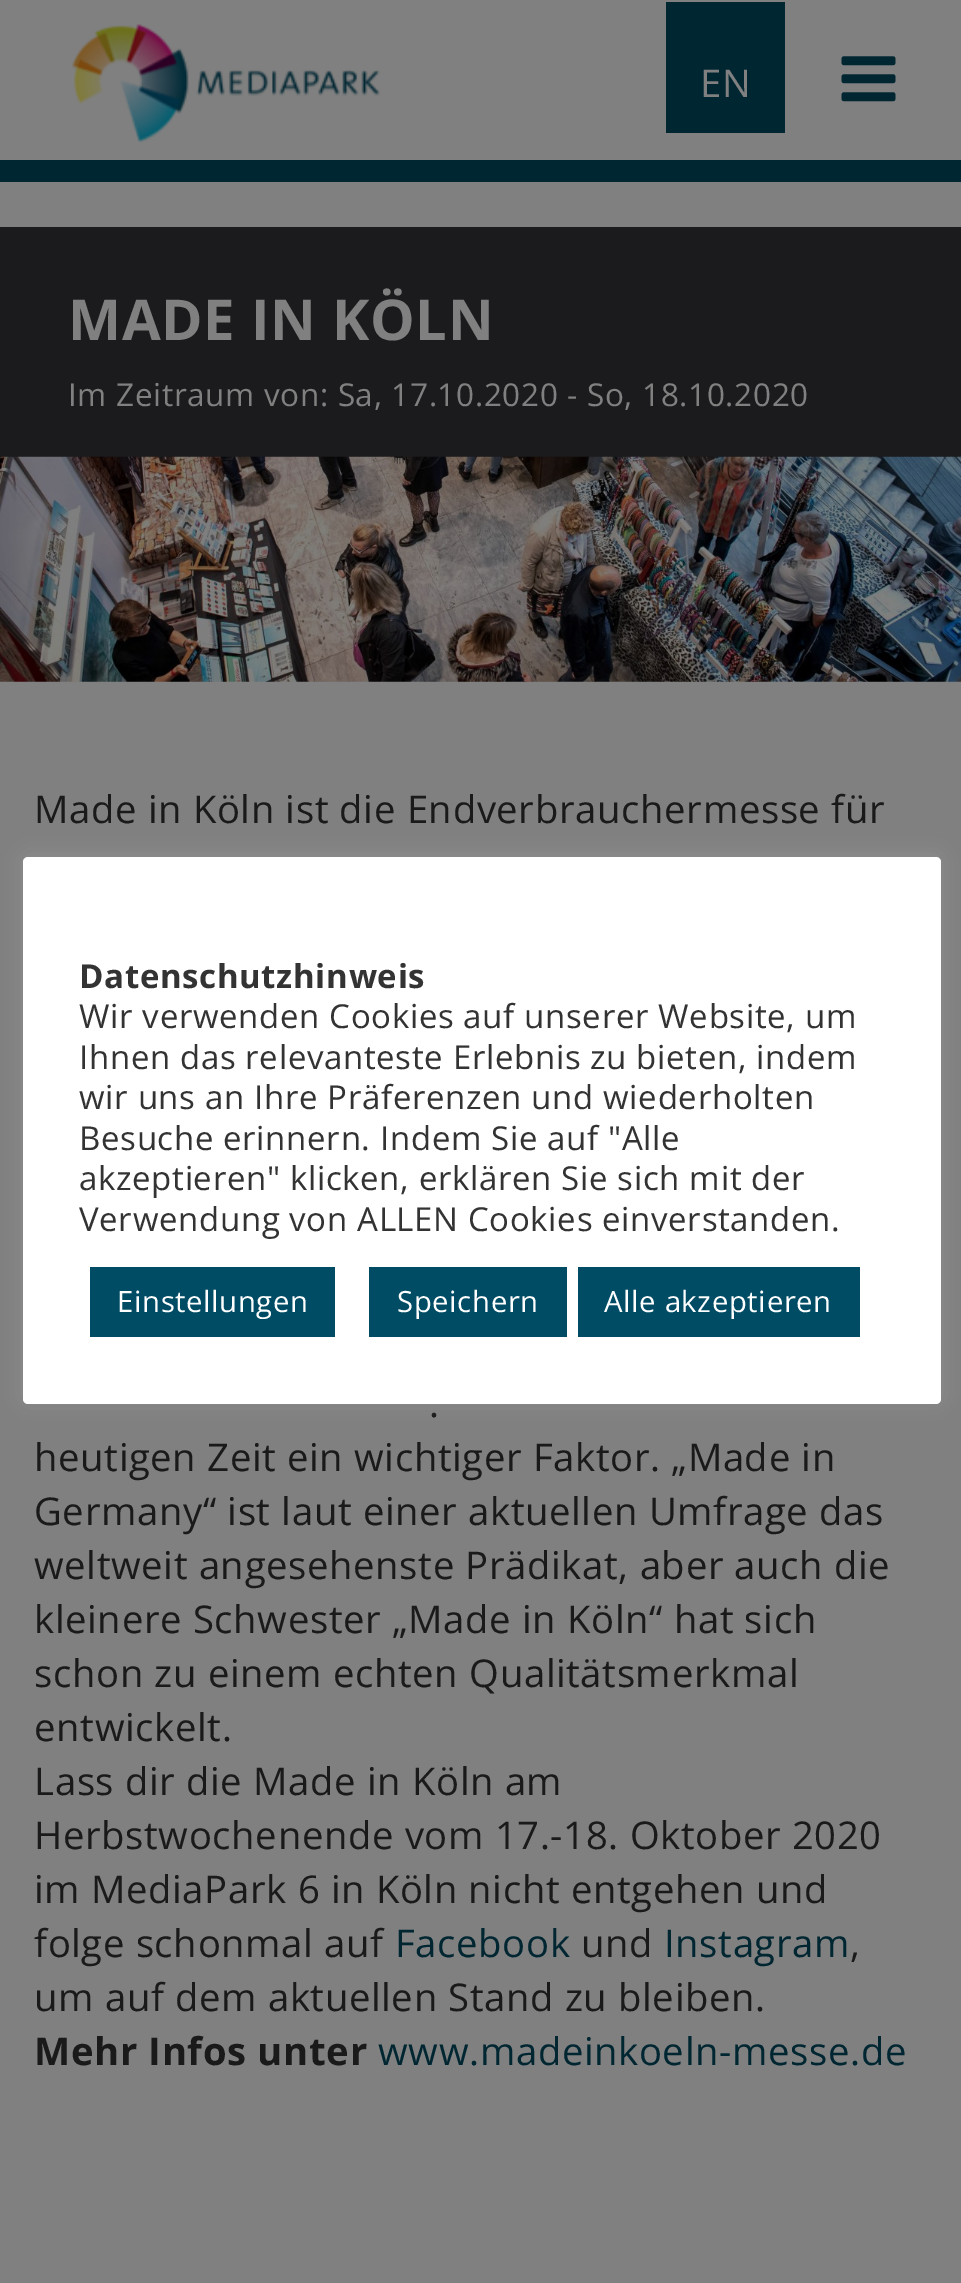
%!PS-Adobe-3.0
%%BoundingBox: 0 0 961 2283
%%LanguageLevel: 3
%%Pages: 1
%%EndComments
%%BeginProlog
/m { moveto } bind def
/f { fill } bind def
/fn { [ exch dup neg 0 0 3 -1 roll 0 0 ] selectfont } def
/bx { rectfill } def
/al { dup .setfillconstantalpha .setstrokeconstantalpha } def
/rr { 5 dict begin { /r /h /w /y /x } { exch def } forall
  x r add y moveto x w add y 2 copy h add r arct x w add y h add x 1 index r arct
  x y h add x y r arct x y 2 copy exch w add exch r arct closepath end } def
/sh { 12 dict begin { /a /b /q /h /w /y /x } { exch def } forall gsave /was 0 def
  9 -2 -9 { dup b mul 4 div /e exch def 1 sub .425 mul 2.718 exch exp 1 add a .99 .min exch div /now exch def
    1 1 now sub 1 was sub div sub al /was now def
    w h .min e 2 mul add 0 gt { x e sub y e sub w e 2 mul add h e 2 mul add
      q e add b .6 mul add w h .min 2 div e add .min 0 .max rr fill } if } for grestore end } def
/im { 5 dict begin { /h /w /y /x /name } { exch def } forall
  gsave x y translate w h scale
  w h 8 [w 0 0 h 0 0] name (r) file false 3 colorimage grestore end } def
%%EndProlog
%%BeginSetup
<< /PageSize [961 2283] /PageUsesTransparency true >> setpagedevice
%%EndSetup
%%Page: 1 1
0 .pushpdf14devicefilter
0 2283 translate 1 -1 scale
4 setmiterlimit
0.502 setgray
0 0 961 2283 bx
0 0.149 0.196 setrgbcolor
0 160 961 22 bx
(image0.raw) 72 24 308 118 im
666 2 119 131 bx
/OpenSans-Regular 38.25 fn
0.502 setgray
700 97 m 0.65 0 (EN) ashow
(image1.raw) 841 56 55 46 im
0.106 0.102 0.11 setrgbcolor
0 227 961 230 bx
/OpenSans-Bold 56.25 fn
0.502 setgray
68 340 m 0.65 0 (MADE IN KÖLN) ashow
/OpenSans-Regular 31.5 fn
68 406 m 0.65 0 (Im Zeitraum von: Sa, 17.10.2020 - So, 18.10.2020) ashow
(image2.raw) 0 456 961 226 im
/OpenSans-Regular 38.25 fn
0.102 setgray
34 823 m 0.65 0 (Made in Köln ist die Endverbrauchermesse für) ashow
429 1417 m 0.65 0 (.) ashow
34 1471 m 0.65 0 (heutigen Zeit ein wichtiger Faktor. „Made in) ashow
34 1525 m 0.65 0 (Germany“ ist laut einer aktuellen Umfrage das) ashow
34 1579 m 0.65 0 (weltweit angesehenste Prädikat, aber auch die) ashow
34 1633 m 0.65 0 (kleinere Schwester „Made in Köln“ hat sich) ashow
34 1687 m 0.65 0 (schon zu einem echten Qualitätsmerkmal) ashow
34 1741 m 0.65 0 (entwickelt.) ashow
34 1795 m 0.65 0 (Lass dir die Made in Köln am) ashow
34 1849 m 0.65 0 (Herbstwochenende vom 17.-18. Oktober 2020) ashow
34 1903 m 0.65 0 (im MediaPark 6 in Köln nicht entgehen und) ashow
34 1957 m 0.65 0 (folge schonmal auf) ashow
0 0.149 0.196 setrgbcolor
395 1957 m 0.65 0 (Facebook) ashow
0.102 setgray
581 1957 m 0.65 0 (und) ashow
0 0.149 0.196 setrgbcolor
664 1957 m 0.65 0 (Instagram) ashow
0.102 setgray
850 1957 m 0.65 0 (,) ashow
34 2011 m 0.65 0 (um auf dem aktuellen Stand zu bleiben.) ashow
/OpenSans-Bold 38.25 fn
34 2065 m 0.65 0 (Mehr Infos unter) ashow
/OpenSans-Regular 38.25 fn
0 0.149 0.196 setrgbcolor
378 2065 m 0.65 0 (www.madeinkoeln-messe.de) ashow
0.675 0.671 0.671 setrgbcolor
23 855 918 547 5 11 0.3 sh
1 setgray
23 857 918 547 5 rr f
/OpenSans-Bold 33 fn
0.2 setgray
79 988 m 0.65 0 (Datenschutzhinweis) ashow
/OpenSans-Regular 33 fn
79 1028 m 0.65 0 (Wir verwenden Cookies auf unserer Website, um) ashow
79 1069 m 0.65 0 (Ihnen das relevanteste Erlebnis zu bieten, indem) ashow
79 1109 m 0.65 0 (wir uns an Ihre Präferenzen und wiederholten) ashow
79 1150 m 0.65 0 (Besuche erinnern. Indem Sie auf "Alle) ashow
79 1190 m 0.65 0 (akzeptieren" klicken, erklären Sie sich mit der) ashow
79 1231 m 0.65 0 (Verwendung von ALLEN Cookies einverstanden.) ashow
0 0.298 0.392 setrgbcolor
90 1267 245 70 bx
/OpenSans-Regular 29.25 fn
1 setgray
117 1312 m 0.65 0 (Einstellungen) ashow
0 0.298 0.392 setrgbcolor
369 1267 198 70 bx
1 setgray
397 1312 m 0.65 0 (Speichern) ashow
0 0.298 0.392 setrgbcolor
578 1267 282 70 bx
1 setgray
604 1312 m 0.65 0 (Alle akzeptieren) ashow
.poppdf14devicefilter showpage
%%EOF
